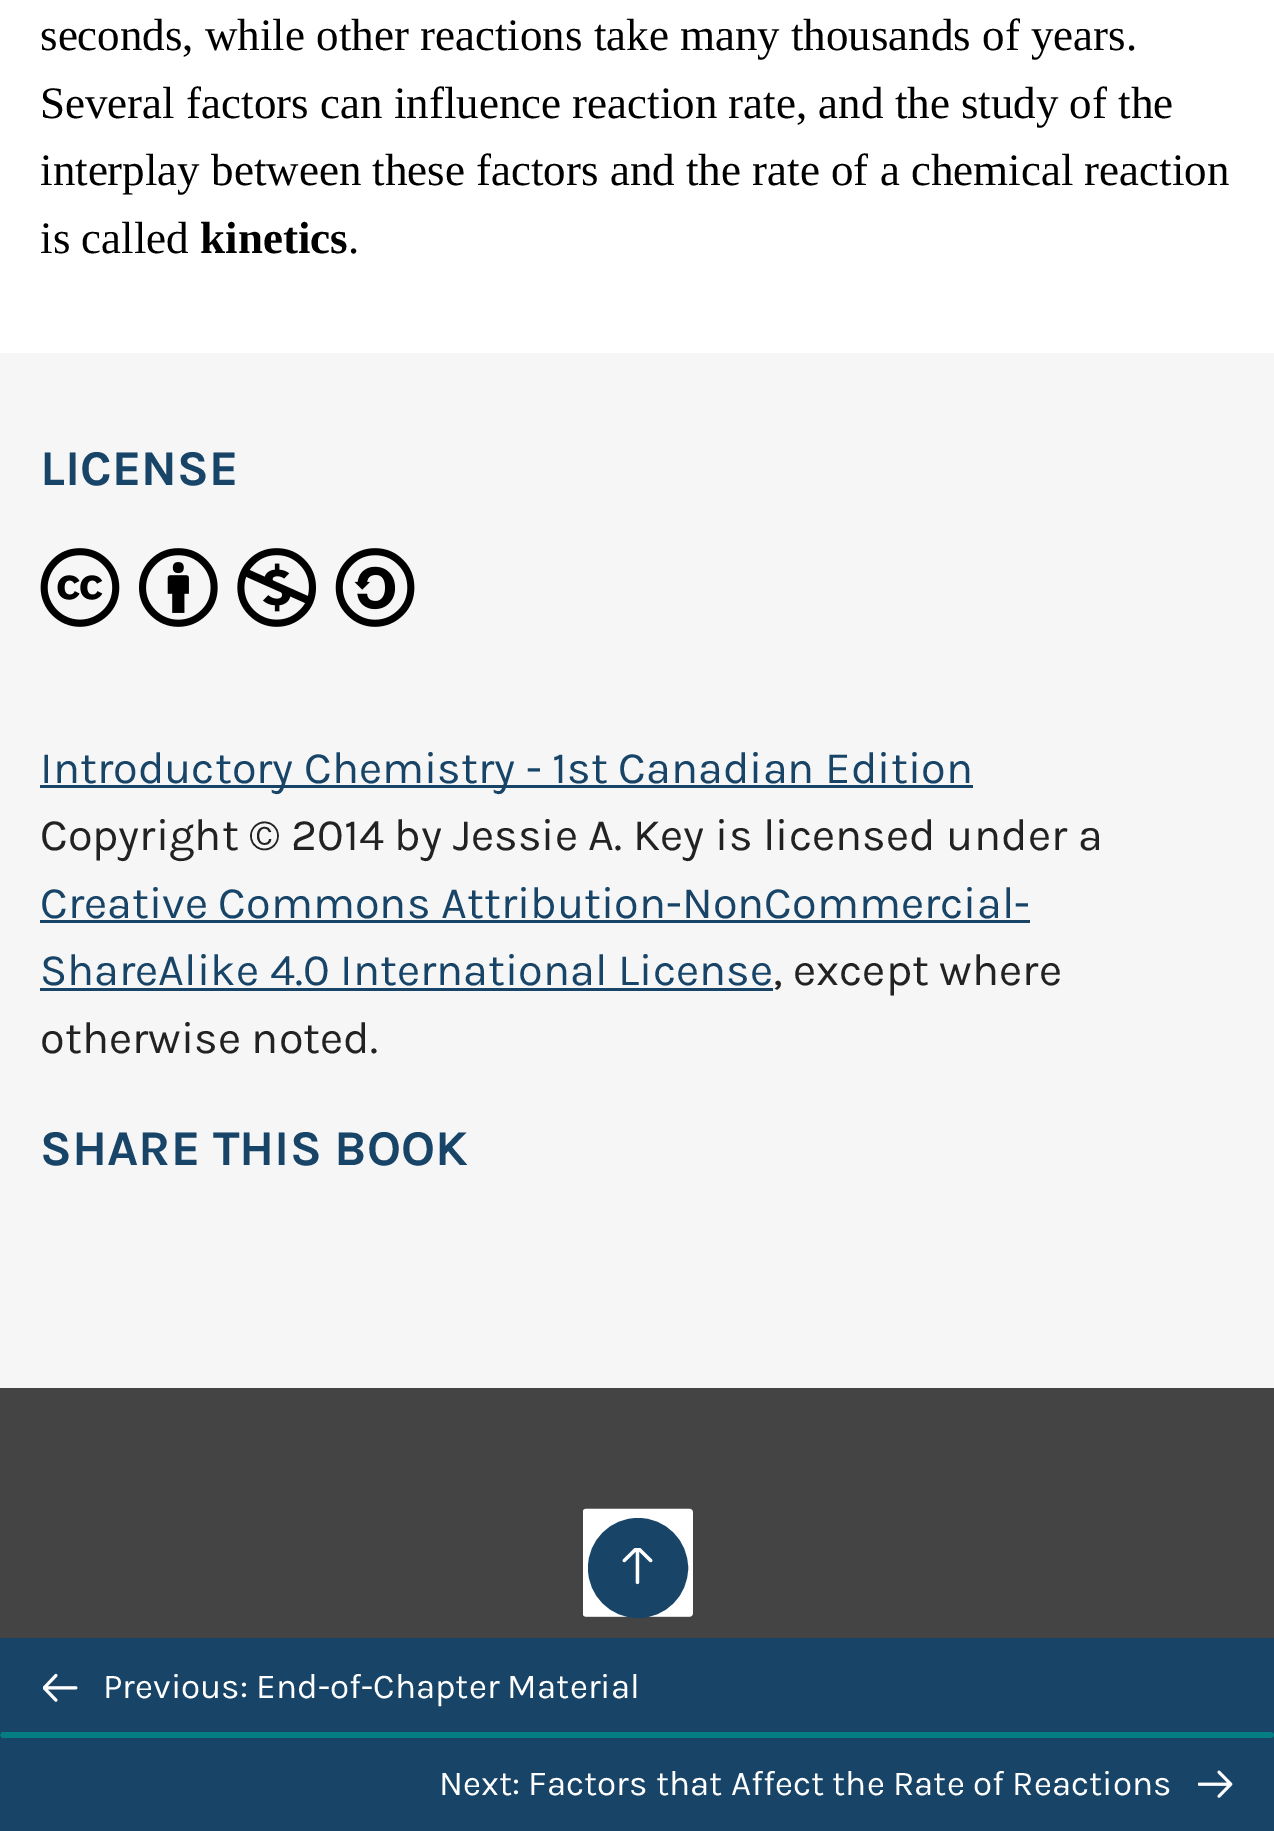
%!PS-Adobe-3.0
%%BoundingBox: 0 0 1274 1831
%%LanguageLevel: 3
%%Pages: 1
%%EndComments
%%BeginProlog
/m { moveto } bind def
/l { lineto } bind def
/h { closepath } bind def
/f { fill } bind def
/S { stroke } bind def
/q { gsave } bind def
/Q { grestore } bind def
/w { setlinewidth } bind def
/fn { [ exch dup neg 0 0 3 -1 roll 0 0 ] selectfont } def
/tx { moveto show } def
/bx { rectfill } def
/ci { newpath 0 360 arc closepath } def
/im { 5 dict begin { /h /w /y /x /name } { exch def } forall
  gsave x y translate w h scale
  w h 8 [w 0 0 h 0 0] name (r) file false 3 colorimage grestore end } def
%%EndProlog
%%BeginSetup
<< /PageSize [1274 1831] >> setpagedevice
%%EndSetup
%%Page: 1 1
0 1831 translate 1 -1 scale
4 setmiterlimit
1 setgray
0 0 1274 1831 bx
/LiberationSerif-Regular 45 fn
0 setgray
(seconds, while other reactions take many thousands of years.) 40 50 tx
(Several factors can influence reaction rate, and the study of the) 40 118 tx
(interplay between these factors and the rate of a chemical reaction) 40 185 tx
(is called) 40 253 tx
/LiberationSerif-Bold 45 fn
(kinetics) 200 253 tx
/LiberationSerif-Regular 45 fn
(.) 348 253 tx
0.965 setgray
0 353 1274 1035 bx
/Karla-Bold 50 fn
0.09 0.267 0.404 setrgbcolor
(LICENSE) 40 485 tx
(image0.raw) 40 548 375 79 im
40 785 933 3 bx
/Karla-Regular 45 fn
(Introductory Chemistry - 1st Canadian Edition) 40 783 tx
0.133 setgray
(Copyright © 2014 by Jessie A. Key is licensed under a) 40 850 tx
0.09 0.267 0.404 setrgbcolor
(Creative Commons Attribution-NonCommercial-) 40 918 tx
40 920 990 3 bx
(ShareAlike 4.0 International License) 40 985 tx
40 988 733 3 bx
0.133 setgray
(, except where) 773 985 tx
(otherwise noted.) 40 1053 tx
/Karla-Bold 50 fn
0.09 0.267 0.404 setrgbcolor
(SHARE THIS BOOK) 40 1165 tx
0 1638 1274 193 bx
0.267 setgray
0 1388 1274 250 bx
(image4.raw) 583 1508 110 109 im
0.09 0.267 0.404 setrgbcolor
638 1568 47.5 ci q f Q
5 w
S
(image1.raw) 622 1548 31 37 im
0.016 0.494 0.514 setrgbcolor
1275 1735 m 0 1735 l 2 1732 l 1272 1732 l h f
(image2.raw) 43 1673 35 29 im
/Karla-Regular 35 fn
1 setgray
(Previous: End-of-Chapter Material) 103 1698 tx
0.016 0.494 0.514 setrgbcolor
0 1735 m 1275 1735 l 1272 1738 l 2 1738 l h f
1 setgray
(Next: Factors that Affect the Rate of Reactions) 439 1795 tx
(image3.raw) 1198 1770 35 28 im
showpage
%%EOF
